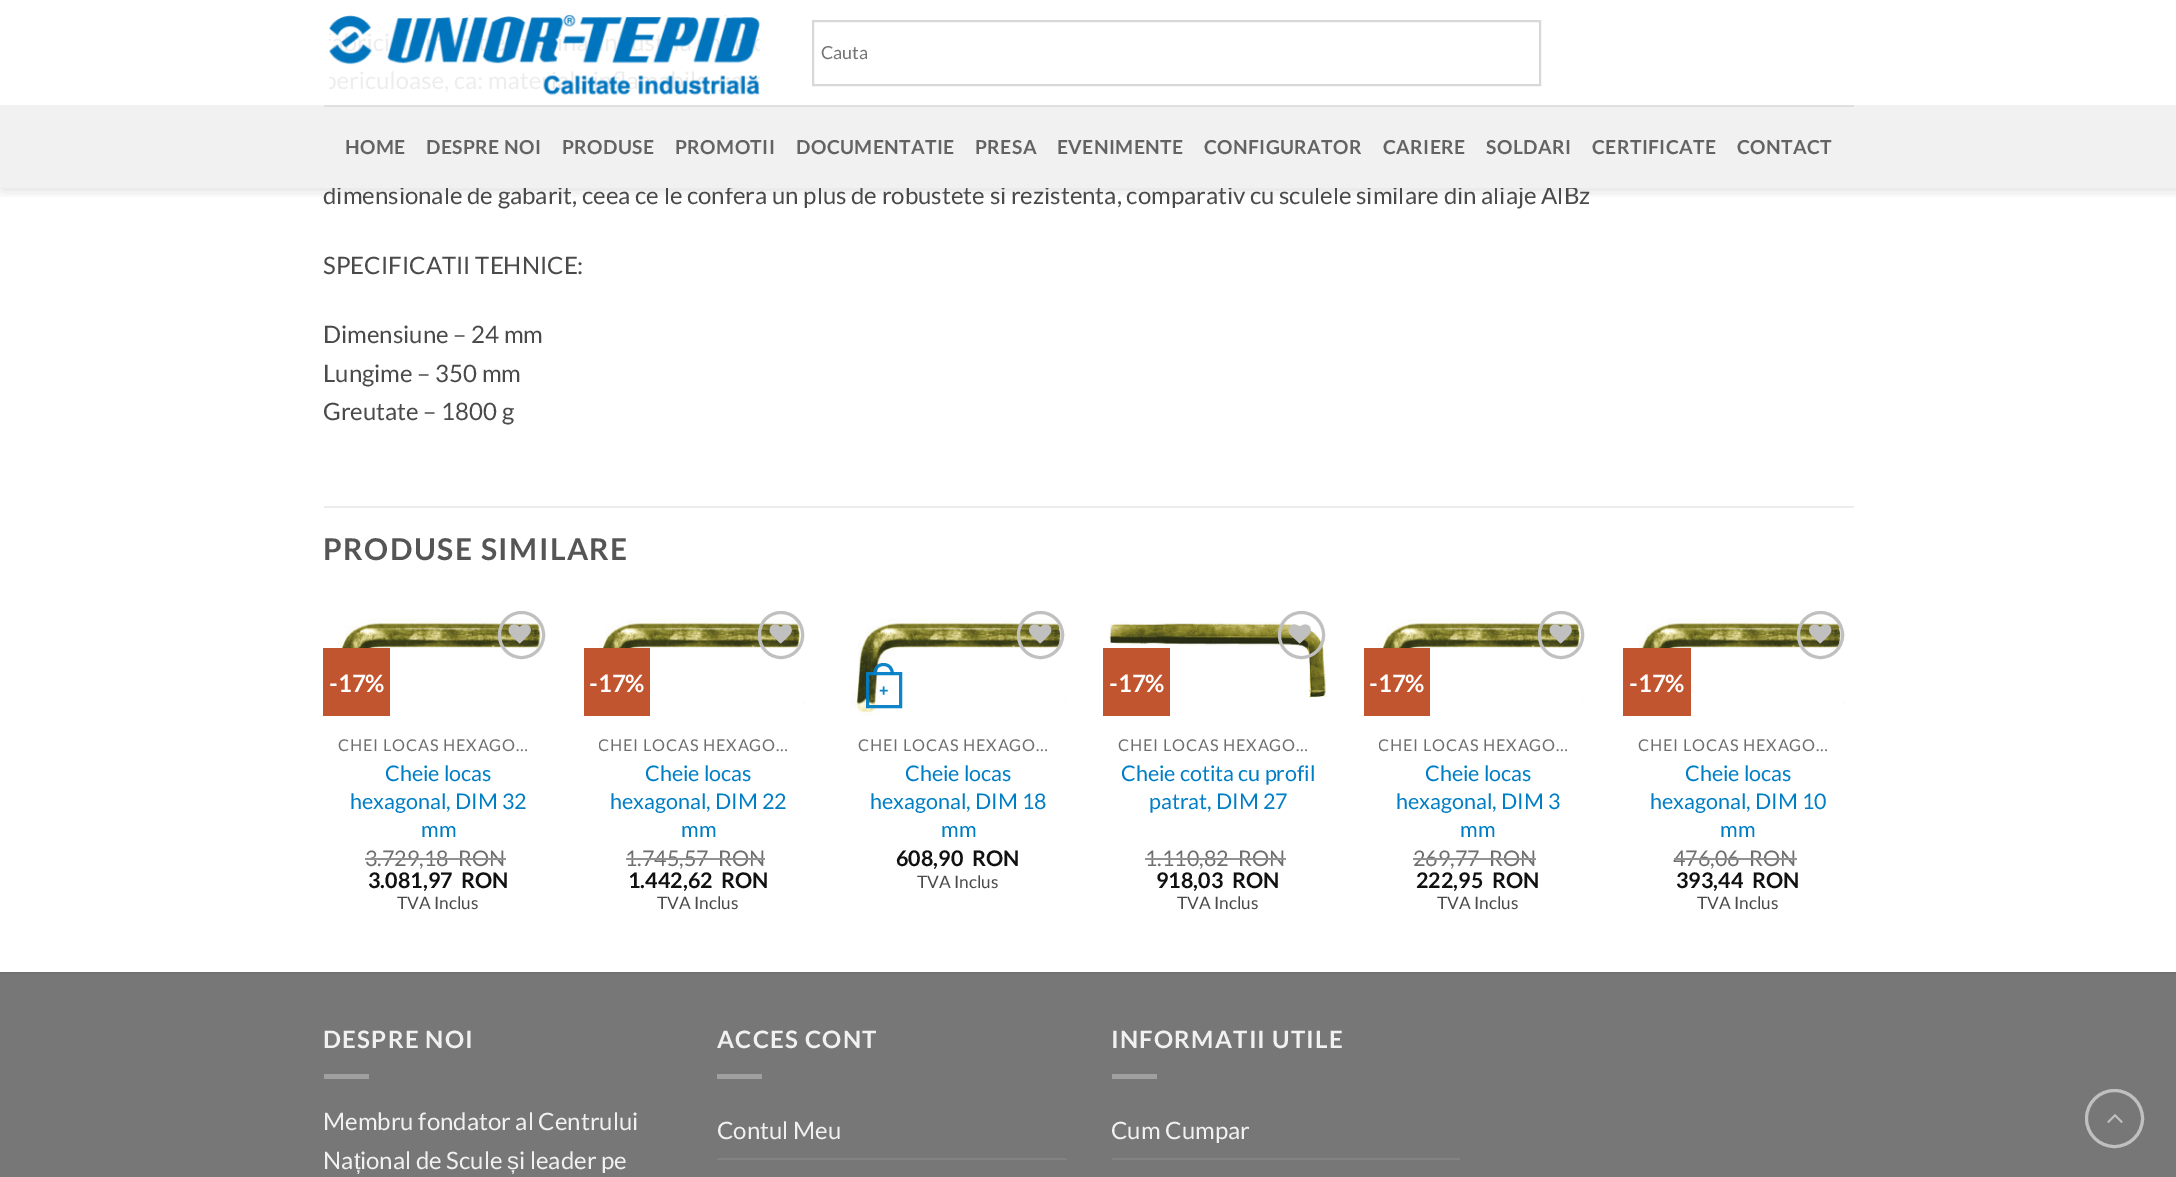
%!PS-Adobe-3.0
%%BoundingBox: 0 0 2176 1177
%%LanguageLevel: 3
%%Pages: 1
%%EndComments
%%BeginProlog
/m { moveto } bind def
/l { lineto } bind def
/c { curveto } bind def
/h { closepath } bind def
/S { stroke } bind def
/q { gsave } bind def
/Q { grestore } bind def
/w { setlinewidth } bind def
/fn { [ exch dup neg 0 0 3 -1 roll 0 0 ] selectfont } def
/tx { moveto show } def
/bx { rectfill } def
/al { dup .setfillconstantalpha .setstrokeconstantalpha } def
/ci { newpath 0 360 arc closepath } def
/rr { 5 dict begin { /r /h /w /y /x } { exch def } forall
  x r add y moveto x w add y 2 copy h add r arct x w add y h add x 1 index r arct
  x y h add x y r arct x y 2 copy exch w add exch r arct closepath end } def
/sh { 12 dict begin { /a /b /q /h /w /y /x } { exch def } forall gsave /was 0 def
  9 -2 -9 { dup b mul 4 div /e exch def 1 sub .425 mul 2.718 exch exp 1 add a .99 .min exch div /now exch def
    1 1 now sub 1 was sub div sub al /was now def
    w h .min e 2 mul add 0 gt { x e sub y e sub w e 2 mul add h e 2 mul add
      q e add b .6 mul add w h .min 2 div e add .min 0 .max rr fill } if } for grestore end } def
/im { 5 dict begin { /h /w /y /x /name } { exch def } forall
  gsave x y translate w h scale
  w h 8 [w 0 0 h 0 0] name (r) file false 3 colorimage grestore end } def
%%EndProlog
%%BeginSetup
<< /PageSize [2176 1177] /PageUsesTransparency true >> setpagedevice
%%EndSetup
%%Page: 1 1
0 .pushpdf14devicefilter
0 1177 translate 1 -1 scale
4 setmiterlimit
1 setgray
0 0 2176 1177 bx
q
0 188 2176 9 rectclip
0 setgray
2 2 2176 187 0 7.5 0.15 sh
Q
(image0.raw) 329 15 431 80 im
0.847 setgray
2 w
813 21 727 64 rectstroke
/Lato-Regular 18 fn
0.459 setgray
(Cauta) 821 59 tx
/Lato-Regular 24 fn
0.29 setgray
(dimensionale de gabarit, ceea ce le confera un plus de robustete si rezistenta, comparativ cu sculele similare din aliaje AlBz) 323 204 tx
0.945 setgray
0 105 2176 83 bx
0.878 setgray
324 105 1530 2 bx
/Lato-Bold 19.25 fn
0.388 setgray
345 154 m 0.4 0 (HOME) ashow
426 154 m 0.4 0 (DESPRE NOI) ashow
562 154 m 0.4 0 (PRODUSE) ashow
675 154 m 0.4 0 (PROMOTII) ashow
796 154 m 0.4 0 (DOCUMENTATIE) ashow
975 154 m 0.4 0 (PRESA) ashow
1057 154 m 0.4 0 (EVENIMENTE) ashow
1204 154 m 0.4 0 (CONFIGURATOR) ashow
1383 154 m 0.4 0 (CARIERE) ashow
1486 154 m 0.4 0 (SOLDARI) ashow
1592 154 m 0.4 0 (CERTIFICATE) ashow
1737 154 m 0.4 0 (CONTACT) ashow
/Lato-Regular 24 fn
0.29 setgray
(SPECIFICATII TEHNICE:) 323 274 tx
(Dimensiune – 24 mm) 323 343 tx
(Lungime – 350 mm) 323 382 tx
(Greutate – 1800 g) 323 420 tx
0.925 setgray
324 506 1530 2 bx
/Lato-Bold 30 fn
0.333 setgray
323 560 m 1.5 0 (PRODUSE SIMILARE) ashow
(image2.raw) 330 618 215 98 im
0.753 0.333 0.188 setrgbcolor
323 648 67 68 bx
/Lato-Bold 24 fn
1 setgray
(-17%) 329 692 tx
0.753 setgray
3 w
499.5 612.5 44 45 22 rr S
(image1.raw) 508 624 23 20 im
/Lato-Regular 16.25 fn
0.431 setgray
338 751 m 0.8 0 (CHEI LOCAS HEXAGO…) ashow
/Lato-Regular 21.5 fn
0 0.494 0.773 setrgbcolor
(Cheie locas) 385 781 tx
(hexagonal, DIM 32) 350 809 tx
(mm) 421 837 tx
0.431 setgray
(3.729,18) 365 866 tx
0.573 setgray
365 858 88 2 bx
0.431 setgray
(RON) 458 866 tx
0.573 setgray
453 858 53 2 bx
/Lato-Bold 21.5 fn
0.067 setgray
(3.081,97) 368 888 tx
(RON) 461 888 tx
/Lato-Regular 17.25 fn
0.29 setgray
(TVA Inclus) 397 909 tx
(image4.raw) 591 618 214 98 im
0.753 0.333 0.188 setrgbcolor
584 648 66 68 bx
/Lato-Bold 24 fn
1 setgray
(-17%) 589 692 tx
0.753 setgray
759.5 612.5 43 45 21.5 rr S
(image3.raw) 769 624 23 20 im
q
599 737 199 19 rectclip
/Lato-Regular 16.25 fn
0.431 setgray
598 751 m 0.8 0 (CHEI LOCAS HEXAGO…) ashow
Q
/Lato-Regular 21.5 fn
0 0.494 0.773 setrgbcolor
(Cheie locas) 645 781 tx
(hexagonal, DIM 22) 610 809 tx
(mm) 681 837 tx
0.431 setgray
(1.745,57) 625 866 tx
0.573 setgray
626 858 88 2 bx
0.431 setgray
(RON) 718 866 tx
0.573 setgray
714 858 51 2 bx
/Lato-Bold 21.5 fn
0.067 setgray
(1.442,62) 628 888 tx
(RON) 721 888 tx
/Lato-Regular 17.25 fn
0.29 setgray
(TVA Inclus) 657 909 tx
(image6.raw) 850 618 216 98 im
0.753 setgray
1018.5 612.5 44 45 22 rr S
(image5.raw) 1029 624 23 20 im
0.95 al
0 0.494 0.773 setrgbcolor
867.5 673.5 33 33 rectstroke
883.5 663 m 890.5 663 894 668.5 894 675 c 873 675 l 873 668.5 876.5 663 883.5 663 c h 883.5 666 m 889 666 891 670.5 891 675 c 876 675 l 876 670.5 878 666 883.5 666 c h eofill
/LiberationSans-Bold 16 fn
1 al
0.051 0.518 0.784 setrgbcolor
(+) 879 696 tx
/Lato-Regular 16.25 fn
0.431 setgray
858 751 m 0.8 0 (CHEI LOCAS HEXAGO…) ashow
/Lato-Regular 21.5 fn
0 0.494 0.773 setrgbcolor
(Cheie locas) 905 781 tx
(hexagonal, DIM 18) 870 809 tx
(mm) 941 837 tx
/Lato-Bold 21.5 fn
0.067 setgray
(608,90) 896 866 tx
(RON) 972 866 tx
/Lato-Regular 17.25 fn
0.29 setgray
(TVA Inclus) 917 888 tx
(image8.raw) 1109 621 218 77 im
0.753 0.333 0.188 setrgbcolor
1103 648 67 68 bx
/Lato-Bold 24 fn
1 setgray
(-17%) 1109 692 tx
0.753 setgray
1279.5 612.5 44 45 22 rr S
(image7.raw) 1288 624 23 20 im
/Lato-Regular 16.25 fn
0.431 setgray
1118 751 m 0.8 0 (CHEI LOCAS HEXAGO…) ashow
/Lato-Regular 21.5 fn
0 0.494 0.773 setrgbcolor
(Cheie cotita cu profil) 1121 781 tx
(patrat, DIM 27) 1149 809 tx
0.431 setgray
(1.110,82) 1145 866 tx
0.573 setgray
1145 858 88 2 bx
0.431 setgray
(RON) 1238 866 tx
0.573 setgray
1233 858 53 2 bx
/Lato-Bold 21.5 fn
0.067 setgray
(918,03) 1156 888 tx
(RON) 1232 888 tx
/Lato-Regular 17.25 fn
0.29 setgray
(TVA Inclus) 1177 909 tx
(image4.raw) 1371 618 214 98 im
0.753 0.333 0.188 setrgbcolor
1364 648 66 68 bx
/Lato-Bold 24 fn
1 setgray
(-17%) 1369 692 tx
0.753 setgray
1539.5 612.5 43 45 21.5 rr S
(image3.raw) 1549 624 23 20 im
q
1379 737 199 19 rectclip
/Lato-Regular 16.25 fn
0.431 setgray
1378 751 m 0.8 0 (CHEI LOCAS HEXAGO…) ashow
Q
/Lato-Regular 21.5 fn
0 0.494 0.773 setrgbcolor
(Cheie locas) 1425 781 tx
(hexagonal, DIM 3) 1396 809 tx
(mm) 1460 837 tx
0.431 setgray
(269,77) 1413 866 tx
0.573 setgray
1413 858 72 2 bx
0.431 setgray
(RON) 1489 866 tx
0.573 setgray
1485 858 51 2 bx
/Lato-Bold 21.5 fn
0.067 setgray
(222,95) 1416 888 tx
(RON) 1492 888 tx
/Lato-Regular 17.25 fn
0.29 setgray
(TVA Inclus) 1437 909 tx
(image6.raw) 1630 618 216 98 im
0.753 0.333 0.188 setrgbcolor
1623 648 68 68 bx
/Lato-Bold 24 fn
1 setgray
(-17%) 1629 692 tx
0.753 setgray
1798.5 612.5 44 45 22 rr S
(image5.raw) 1809 624 23 20 im
/Lato-Regular 16.25 fn
0.431 setgray
1638 751 m 0.8 0 (CHEI LOCAS HEXAGO…) ashow
/Lato-Regular 21.5 fn
0 0.494 0.773 setrgbcolor
(Cheie locas) 1685 781 tx
(hexagonal, DIM 10) 1650 809 tx
(mm) 1720 837 tx
0.431 setgray
(476,06) 1673 866 tx
0.573 setgray
1674 858 71 2 bx
0.431 setgray
(RON) 1749 866 tx
0.573 setgray
1745 858 52 2 bx
/Lato-Bold 21.5 fn
0.067 setgray
(393,44) 1676 888 tx
(RON) 1752 888 tx
/Lato-Regular 17.25 fn
0.29 setgray
(TVA Inclus) 1697 909 tx
0.467 setgray
0 974 2176 203 bx
0.443 setgray
0 972 2176 2 bx
/Lato-Bold 24 fn
0.945 setgray
323 1048 m 1.25 0 (DESPRE NOI) ashow
0.627 setgray
324 1074 45 5 bx
/Lato-Regular 24 fn
0.945 setgray
(Membru fondator al Centrului) 323 1130 tx
(Na) 323 1169 tx
/LiberationSans-Regular 24 fn
(ț) 354 1169 tx
/Lato-Regular 24 fn
(ional de Scule) 360 1169 tx
/LiberationSans-Regular 24 fn
(ș) 507 1169 tx
/Lato-Regular 24 fn
(i leader pe) 519 1169 tx
/Lato-Bold 24 fn
717 1048 m 1.25 0 (ACCES CONT) ashow
0.627 setgray
717 1074 45 5 bx
/Lato-Regular 24 fn
0.945 setgray
(Contul Meu) 717 1139 tx
0.51 setgray
717 1158 350 2 bx
/Lato-Bold 24 fn
0.945 setgray
1111 1048 m 1.25 0 (INFORMATII UTILE) ashow
0.627 setgray
1112 1074 45 5 bx
/Lato-Regular 24 fn
0.945 setgray
(Cum Cumpar) 1111 1139 tx
0.51 setgray
1112 1158 348 2 bx
0.753 setgray
2114.5 1118.5 28 ci S
(image9.raw) 2107 1114 16 9 im
.poppdf14devicefilter showpage
%%EOF
